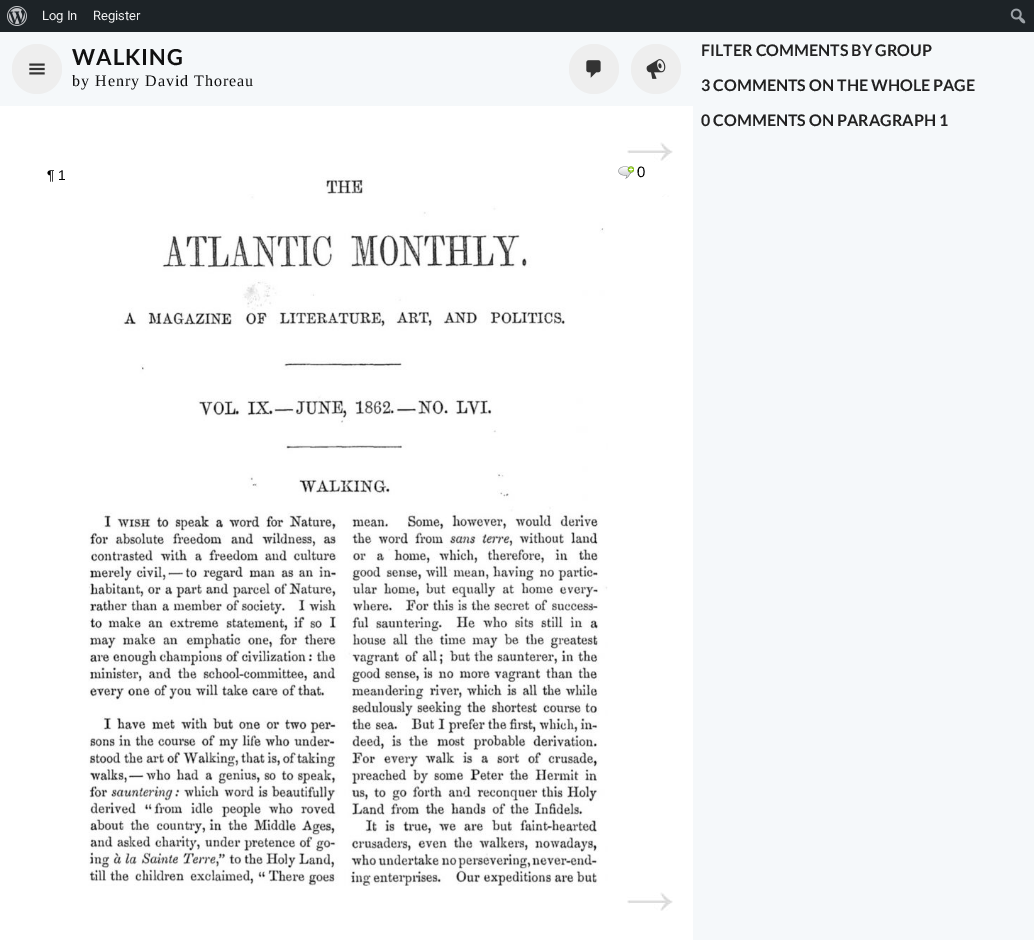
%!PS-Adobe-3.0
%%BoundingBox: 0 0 1034 940
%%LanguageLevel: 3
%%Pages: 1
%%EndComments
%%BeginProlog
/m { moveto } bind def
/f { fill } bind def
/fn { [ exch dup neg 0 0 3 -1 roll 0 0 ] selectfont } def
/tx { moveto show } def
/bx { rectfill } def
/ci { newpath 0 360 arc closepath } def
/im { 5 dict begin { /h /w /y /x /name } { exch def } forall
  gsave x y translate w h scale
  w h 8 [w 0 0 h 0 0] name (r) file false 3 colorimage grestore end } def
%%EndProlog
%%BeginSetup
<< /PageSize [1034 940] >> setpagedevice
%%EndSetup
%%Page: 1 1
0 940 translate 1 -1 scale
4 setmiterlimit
0.961 0.973 0.98 setrgbcolor
0 0 1034 940 bx
0.114 0.137 0.153 setrgbcolor
0 0 1034 32 bx
(image0.raw) 7 6 20 20 im
/Roboto-Regular 13 fn
0.941 0.941 0.945 setrgbcolor
(Log In) 42 20 tx
(Register) 93 20 tx
(image1.raw) 1010 8 16 16 im
/Lato-Bold 16 fn
0.133 setgray
(FILTER COMMENTS BY GROUP) 701 56 tx
(3 COMMENTS ON THE WHOLE PAGE) 701 91 tx
(0 COMMENTS ON PARAGRAPH 1) 701 126 tx
1 setgray
0 106 693 834 bx
/LiberationSans-Regular 14 fn
0 setgray
(¶ 1) 47 180 tx
(image2.raw) 88 177 520 709 im
(image4.raw) 627 142 46 55 im
(image3.raw) 618 166 16 13 im
/LiberationSans-Regular 15 fn
(0) 637 177 tx
(image5.raw) 627 892 46 19 im
0.933 setgray
37 69 25 ci f
(image6.raw) 29 63 16 12 im
594 69 25 ci f
(image7.raw) 586 60 15 18 im
656 69 25 ci f
(image8.raw) 646 59 20 20 im
/Lato-Bold 22 fn
0.067 setgray
72 65 m 1 0 (WALKING) ashow
/LiberationSerif-Regular 16 fn
72 86 m 1 0 (by Henry David Thoreau) ashow
showpage
%%EOF
